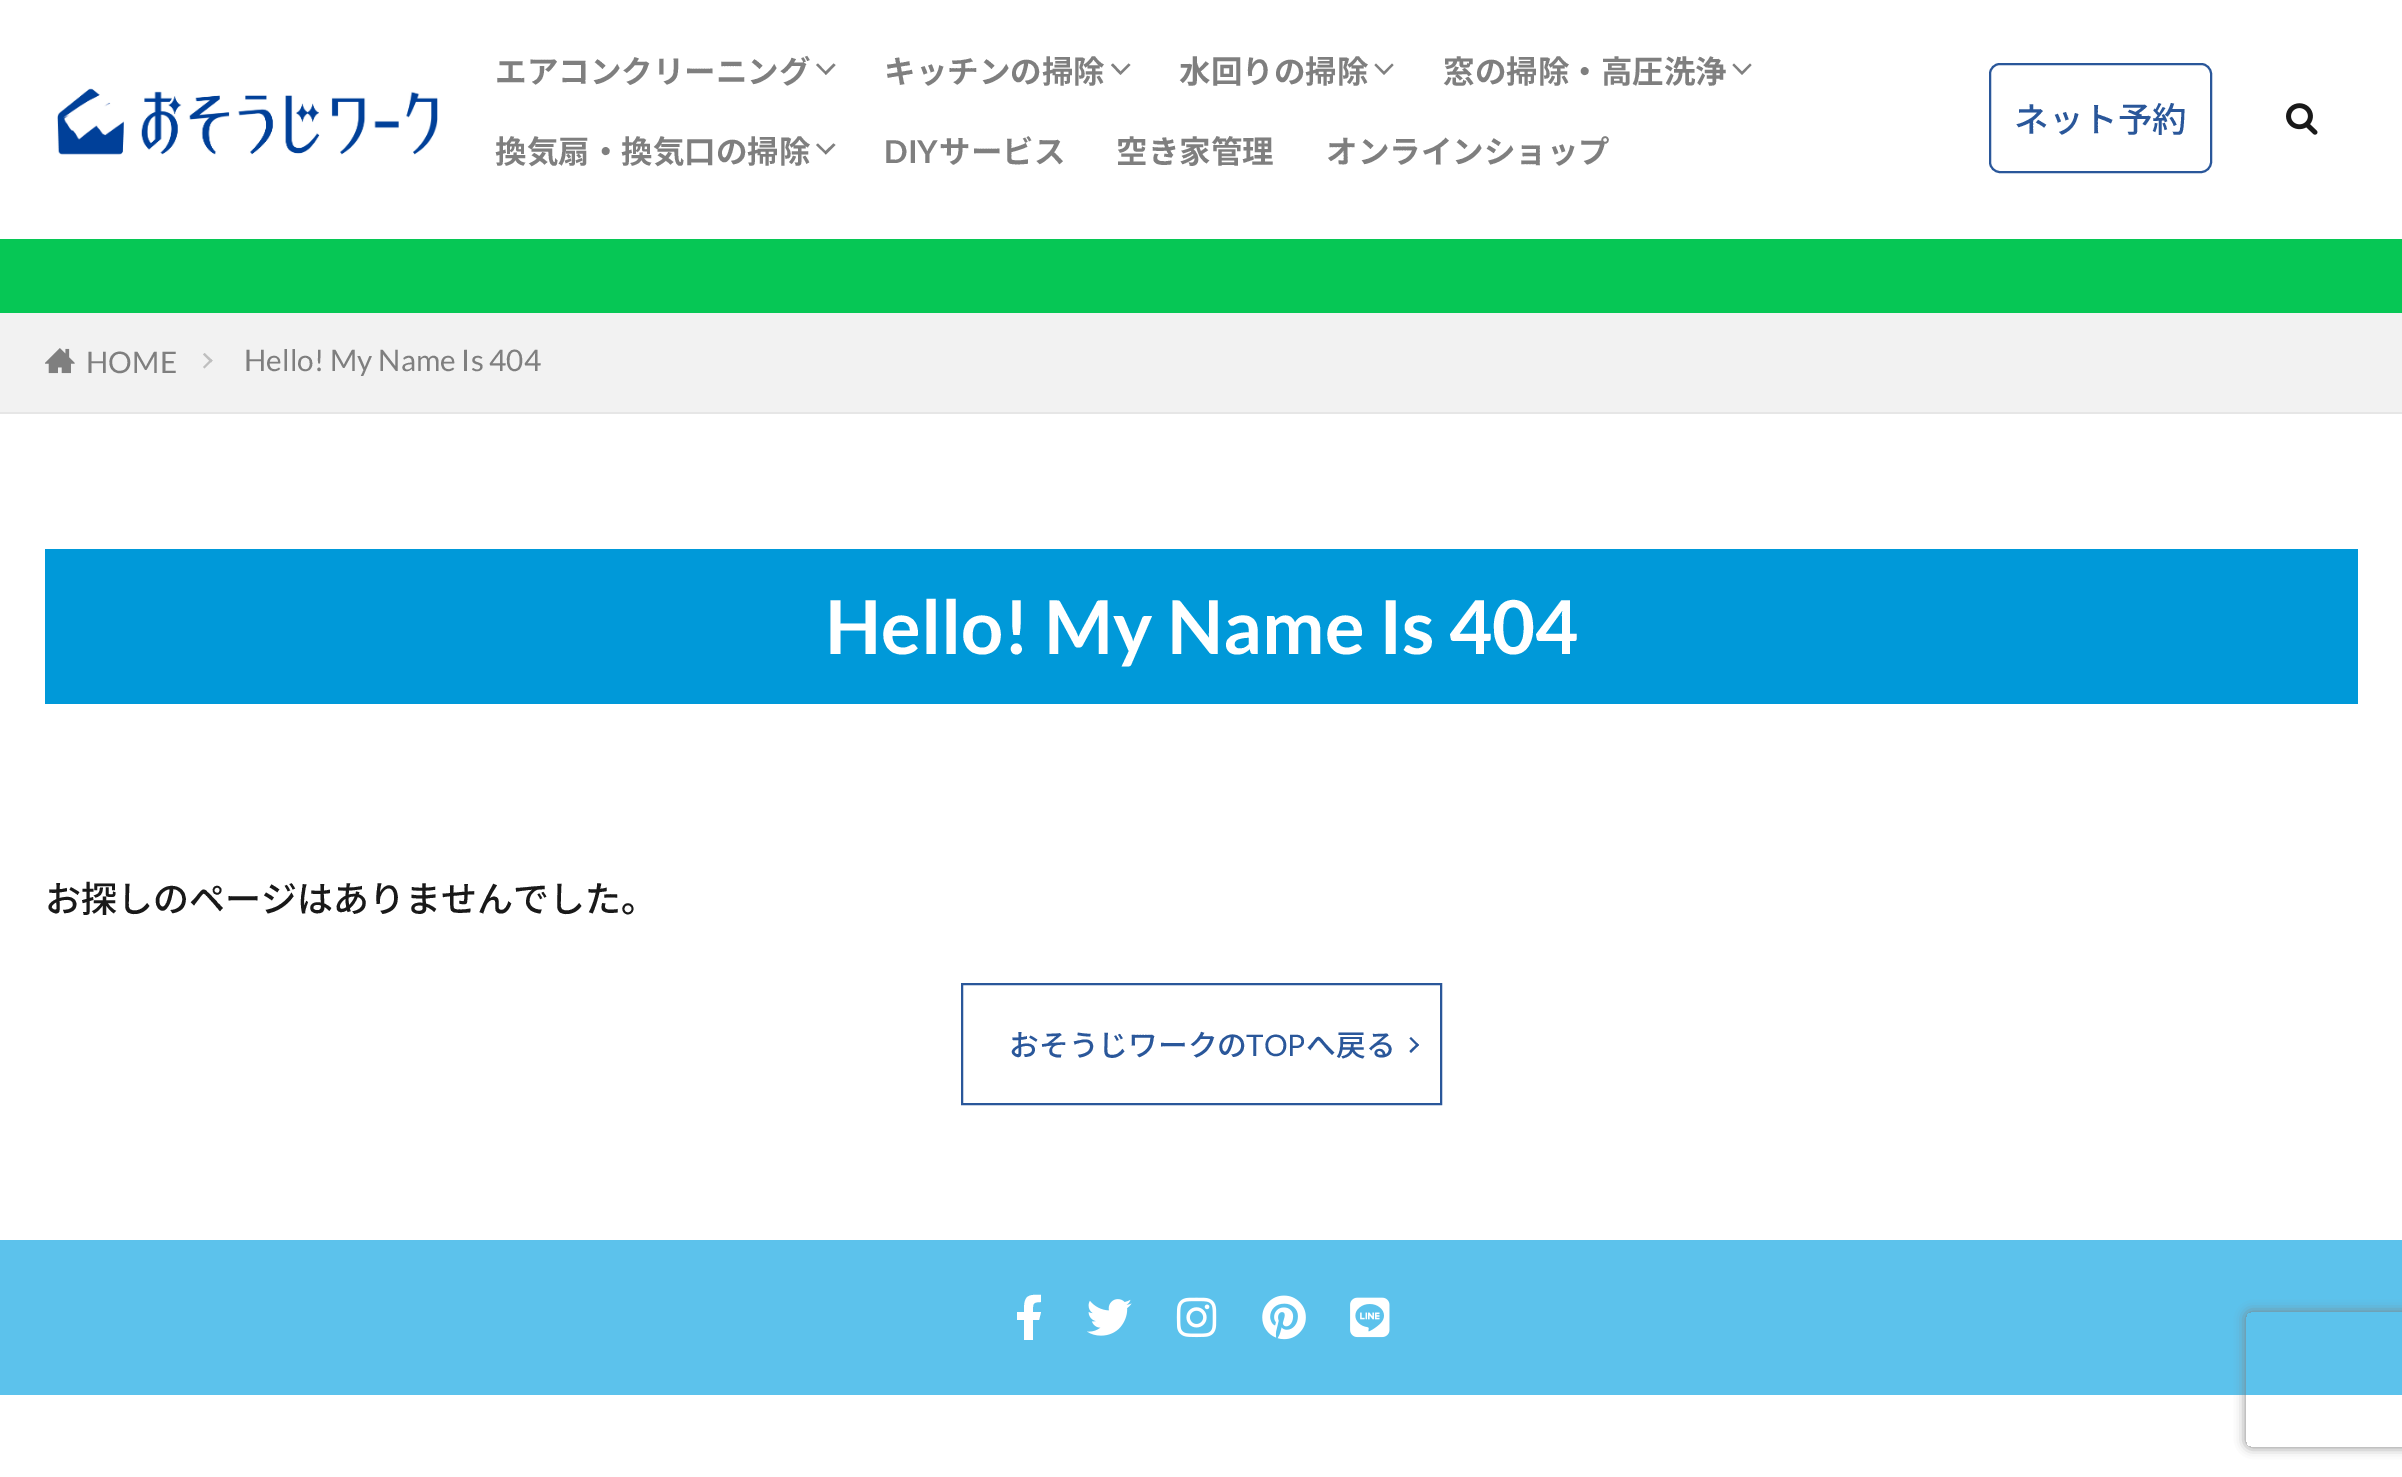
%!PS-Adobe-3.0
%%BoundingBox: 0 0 2402 1477
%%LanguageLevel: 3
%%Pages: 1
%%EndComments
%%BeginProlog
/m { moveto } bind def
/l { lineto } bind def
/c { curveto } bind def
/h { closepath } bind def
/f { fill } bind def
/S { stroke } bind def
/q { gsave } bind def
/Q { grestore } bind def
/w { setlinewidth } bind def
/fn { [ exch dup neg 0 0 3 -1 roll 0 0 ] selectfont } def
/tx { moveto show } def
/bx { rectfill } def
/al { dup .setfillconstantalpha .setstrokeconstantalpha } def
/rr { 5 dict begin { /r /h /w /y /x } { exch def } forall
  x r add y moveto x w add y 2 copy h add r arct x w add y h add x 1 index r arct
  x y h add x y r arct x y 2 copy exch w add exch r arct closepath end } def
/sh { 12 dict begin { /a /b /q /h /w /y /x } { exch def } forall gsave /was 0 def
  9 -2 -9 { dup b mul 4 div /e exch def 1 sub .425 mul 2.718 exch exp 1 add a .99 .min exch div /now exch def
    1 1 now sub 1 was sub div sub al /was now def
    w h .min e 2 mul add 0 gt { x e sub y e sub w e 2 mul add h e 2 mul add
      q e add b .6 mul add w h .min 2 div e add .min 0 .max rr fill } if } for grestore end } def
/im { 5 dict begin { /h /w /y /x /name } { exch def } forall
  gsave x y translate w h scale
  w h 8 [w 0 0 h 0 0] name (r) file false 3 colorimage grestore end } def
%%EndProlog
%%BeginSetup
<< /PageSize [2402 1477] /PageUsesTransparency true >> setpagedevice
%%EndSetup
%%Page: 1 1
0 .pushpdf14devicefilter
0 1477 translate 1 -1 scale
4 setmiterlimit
1 setgray
0 0 2402 1477 bx
(image0.raw) 57 88 381 67 im
/NotoSansJP-Bold 31.5 fn
0.498 setgray
(エアコンクリーニング) 495 83 tx
0.502 setgray
835.5 65 m 826 75 l 825.5 71.5 l 833.5 63.5 l h f
0.5 al
0 setgray
826 75 m 816 65 l 818 63.5 l 825.5 71.5 l h f
1 al
0.498 setgray
(キッチンの掃除) 884 83 tx
0.502 setgray
1130.5 65 m 1120.5 75 l 1120.5 71.5 l 1128.5 63.5 l h f
0.5 al
0 setgray
1120.5 75 m 1111 65 l 1113 63.5 l 1120.5 71.5 l h f
1 al
0.498 setgray
(水回りの掃除) 1179 83 tx
0.502 setgray
1393.5 65 m 1384 75 l 1384 71.5 l 1392 63.5 l h 1384 75 m 1374.5 65 l 1376 63.5 l 1384 71.5 l h f
0.498 setgray
(窓の掃除・高圧洗浄) 1443 83 tx
0.502 setgray
1751.5 65 m 1742 75 l 1742 71.5 l 1750 63.5 l h 1742 75 m 1732.5 65 l 1734 63.5 l 1742 71.5 l h f
0.498 setgray
(換気扇・換気口の掃除) 495 163 tx
0.502 setgray
835.5 145 m 826 154.5 l 825.5 151 l 833.5 143.5 l h f
0.5 al
0 setgray
826 154.5 m 816 145 l 818 143.5 l 825.5 151 l h f
/Lato-Bold 31.5 fn
1 al
0.498 setgray
(DIY) 884 163 tx
/NotoSansJP-Bold 31.5 fn
(サービス) 939 163 tx
(空き家管理) 1116 163 tx
(オンラインショップ) 1326 163 tx
0.165 0.341 0.604 setrgbcolor
2 w
1990 64 221 108 10 rr S
/NotoSansJP-Medium 34.5 fn
(ネット予約) 2014 132 tx
(image1.raw) 2286 103 32 32 im
0.024 0.78 0.333 setrgbcolor
0 239 2402 74 bx
0.949 setgray
0 313 2402 99 bx
0.902 setgray
0 412 2402 2 bx
(image2.raw) 45 348 30 26 im
/Lato-Regular 29.75 fn
0.498 setgray
(HOME) 86 373 tx
0.749 setgray
204.5 353 m 212.5 360.5 l 211 362.5 l 203 354.5 l h f
211 359 m 212.5 360.5 l 204.5 368.5 l 203 367 l h f
0.498 setgray
(Hello! My Name Is 404) 244 371 tx
0 0.6 0.851 setrgbcolor
45 549 2313 155 bx
/Lato-Bold 74.25 fn
1 setgray
(Hello! My Name Is 404) 825 654 tx
/NotoSansJP-Medium 36 fn
0.098 setgray
(お探しのページはありませんでした。) 45 912 tx
0.165 0.341 0.604 setrgbcolor
962 984 479 120 rectstroke
/NotoSansJP-Medium 29.75 fn
(おそうじワークの) 1009 1056 tx
/Lato-Regular 29.75 fn
(TOP) 1246 1056 tx
/NotoSansJP-Medium 29.75 fn
(へ戻る) 1306 1056 tx
1411 1037 m 1419 1045 l 1417.5 1046.5 l 1409.5 1038.5 l h f
1417.5 1043.5 m 1419 1045 l 1411 1053 l 1409.5 1051 l h f
0.361 0.761 0.925 setrgbcolor
0 1240 2402 155 bx
1 setgray
1039 1320 m 1033 1320 l 1033 1340 l 1024 1340 l 1024 1320 l 1017 1320 l 1017 1312 l 1024 1312 l 1024 1297 1026 1294 1041 1295 c 1041 1302 l 1032 1302 1033 1304 1033 1312 c 1041 1312 l h f
(image3.raw) 1087 1299 45 37 im
(image4.raw) 1176 1297 41 41 im
(image5.raw) 1262 1295 44 45 im
(image6.raw) 1350 1297 40 41 im
q
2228 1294 m 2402 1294 l 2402 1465 l 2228 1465 l h 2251 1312 m 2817 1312 l 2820 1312 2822 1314 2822 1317 c 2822 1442 l 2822 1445 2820 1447 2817 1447 c 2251 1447 l 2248 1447 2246 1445 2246 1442 c 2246 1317 l 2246 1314 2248 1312 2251 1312 c h eoclip newpath
0.502 setgray
2246 1312 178 135 5 5.5 1 sh
Q
.poppdf14devicefilter showpage
%%EOF
